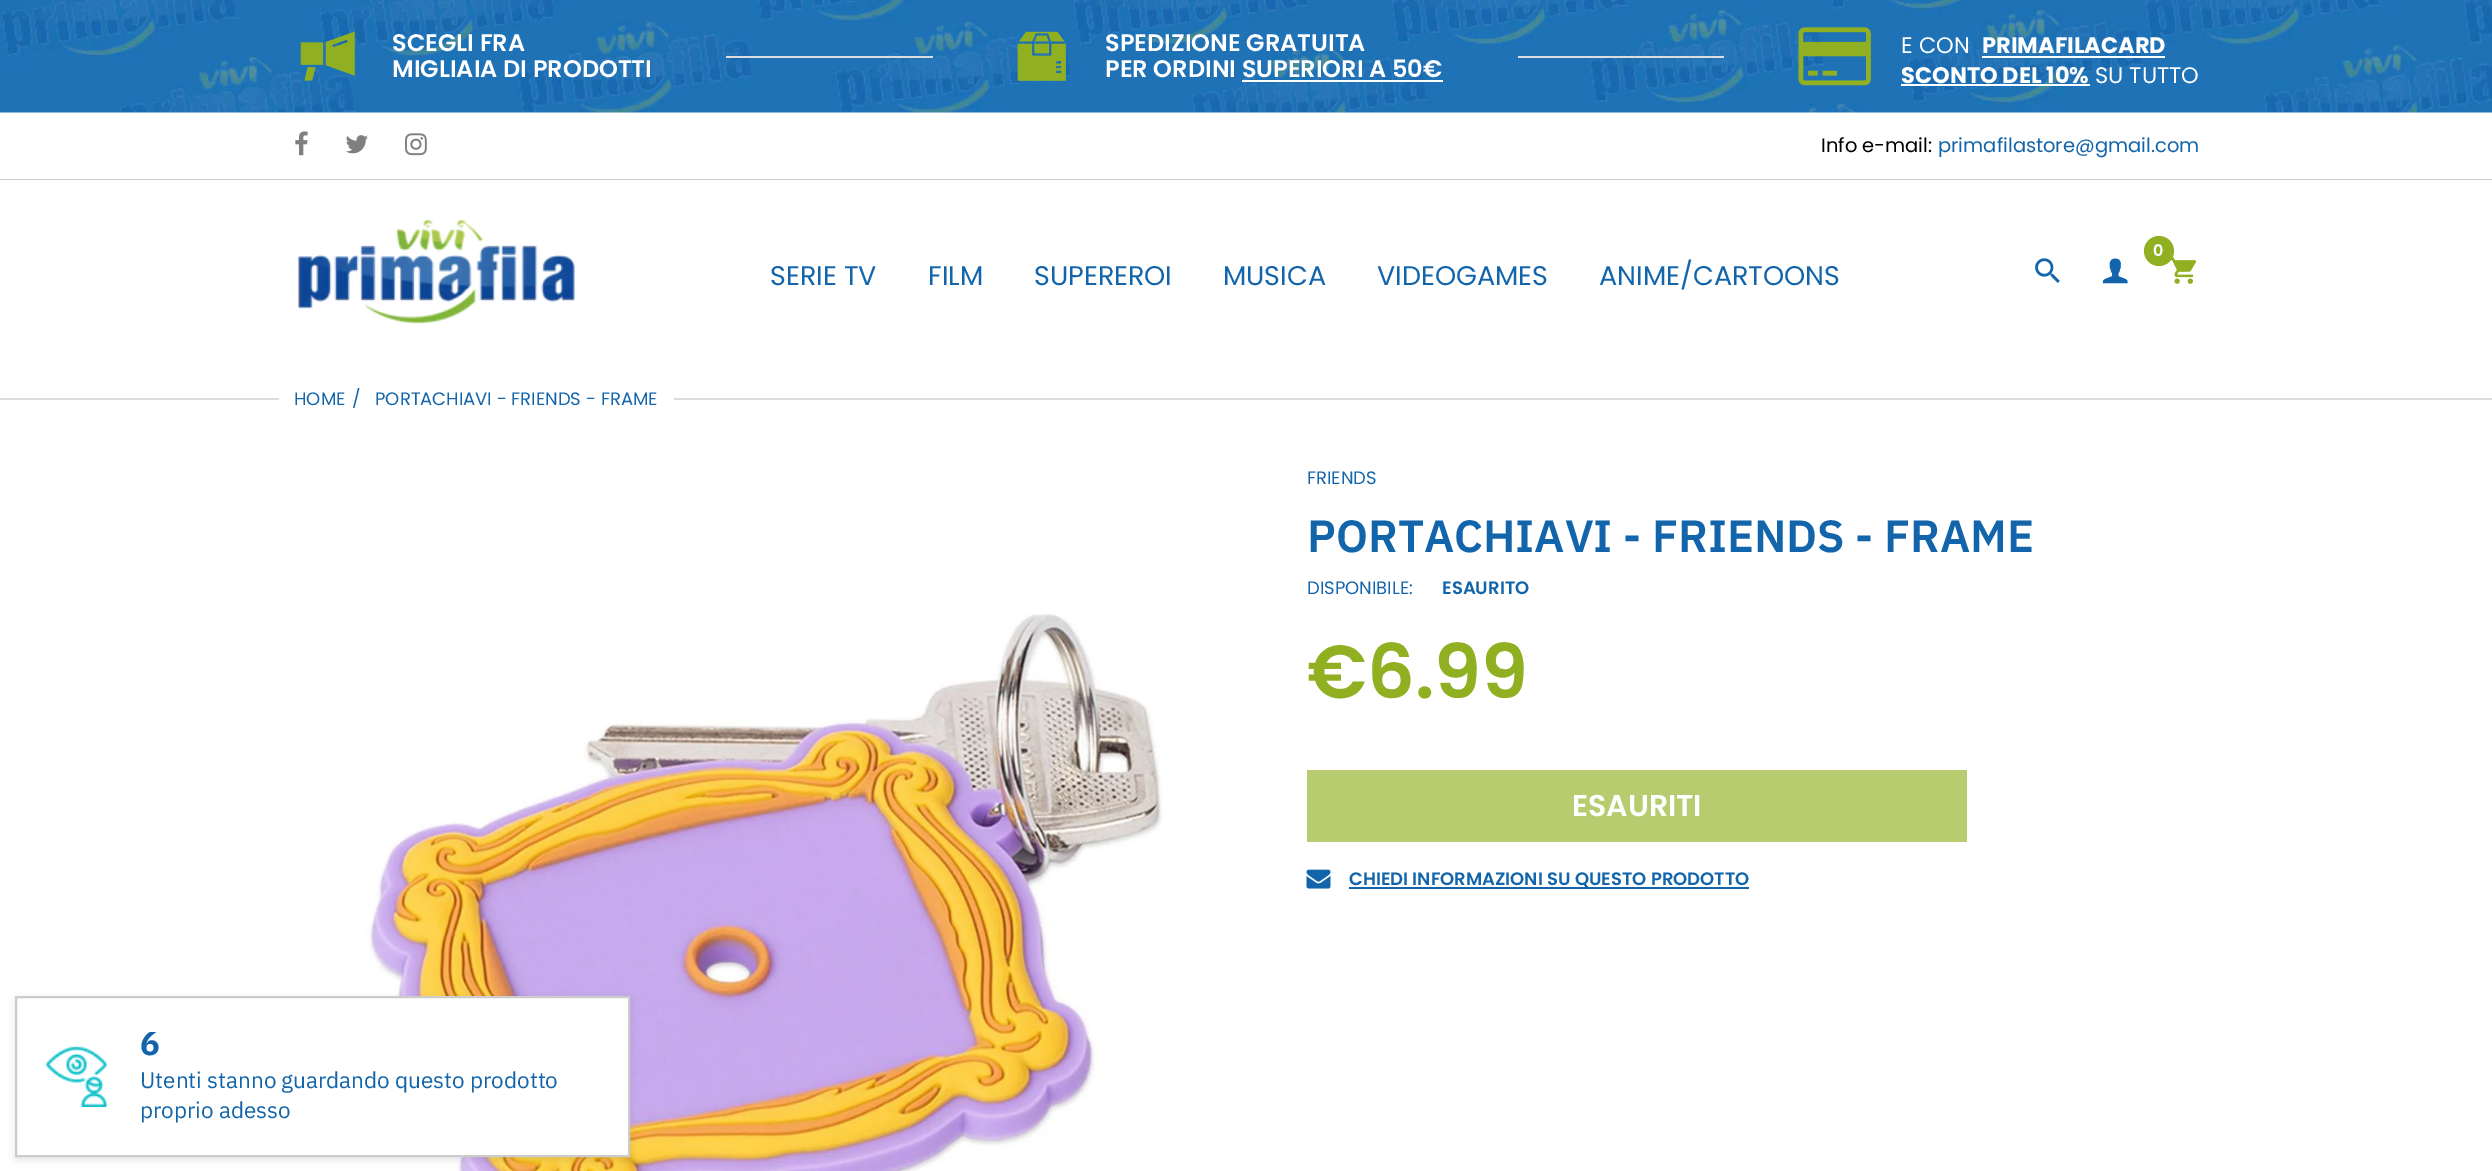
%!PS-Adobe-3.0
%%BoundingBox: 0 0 2492 1171
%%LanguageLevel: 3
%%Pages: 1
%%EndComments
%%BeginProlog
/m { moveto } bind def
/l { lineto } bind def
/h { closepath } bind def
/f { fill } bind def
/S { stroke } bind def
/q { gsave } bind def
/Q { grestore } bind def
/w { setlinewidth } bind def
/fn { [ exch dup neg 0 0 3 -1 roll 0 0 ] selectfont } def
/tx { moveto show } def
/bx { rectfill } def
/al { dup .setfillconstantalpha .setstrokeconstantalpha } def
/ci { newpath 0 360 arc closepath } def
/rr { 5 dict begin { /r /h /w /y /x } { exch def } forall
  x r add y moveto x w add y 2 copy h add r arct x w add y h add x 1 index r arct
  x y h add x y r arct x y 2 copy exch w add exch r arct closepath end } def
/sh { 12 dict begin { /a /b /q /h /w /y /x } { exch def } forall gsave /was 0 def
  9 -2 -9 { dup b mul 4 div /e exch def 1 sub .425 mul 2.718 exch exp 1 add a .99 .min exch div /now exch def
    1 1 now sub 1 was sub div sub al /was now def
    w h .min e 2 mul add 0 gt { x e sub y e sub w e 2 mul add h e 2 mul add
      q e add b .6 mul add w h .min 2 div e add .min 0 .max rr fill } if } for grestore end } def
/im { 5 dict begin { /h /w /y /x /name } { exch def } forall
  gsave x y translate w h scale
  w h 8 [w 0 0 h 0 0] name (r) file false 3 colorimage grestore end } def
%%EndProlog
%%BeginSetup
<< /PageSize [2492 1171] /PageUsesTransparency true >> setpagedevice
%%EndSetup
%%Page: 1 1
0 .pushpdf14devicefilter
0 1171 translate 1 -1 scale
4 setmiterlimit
1 setgray
0 0 2492 1171 bx
(image0.raw) 0 0 2492 113 im
(image1.raw) 300 31 55 50 im
/poppins-SemiBold 24 fn
(SCEGLI FRA) 392 51 tx
(MIGLIAIA DI PRODOTTI) 392 77 tx
0.867 setgray
726 56 207 2 bx
(image2.raw) 1017 31 49 50 im
1 setgray
(SPEDIZIONE GRATUITA) 1105 51 tx
(PER ORDINI SUPERIORI A 50€) 1105 77 tx
1242 80 201 2 bx
0.867 setgray
1518 56 206 2 bx
(image3.raw) 1798 27 73 59 im
/poppins-Regular 22.5 fn
1 setgray
(E CON) 1901 53 tx
/poppins-Bold 22.5 fn
(PRIMAFILACARD) 1982 53 tx
1982 56 183 2 bx
(SCONTO DEL 10%) 1901 83 tx
1901 84 189 2 bx
/poppins-Regular 22.5 fn
(SU TUTTO) 2095 83 tx
0.8 setgray
0 179 2492 1 bx
(image4.raw) 295 131 13 25 im
(image5.raw) 346 135 22 19 im
(image6.raw) 405 133 22 23 im
/poppins-Regular 19.5 fn
0 setgray
(Info e-mail:) 1821 152 tx
0.071 0.396 0.667 setrgbcolor
(primafilastore@gmail.com) 1938 152 tx
(image7.raw) 298 219 277 105 im
(image8.raw) 2170 257 27 27 im
0.565 0.69 0.133 setrgbcolor
2159 251 15 ci f
/poppins-SemiBold 16 fn
1 setgray
(0) 2153 256 tx
(image9.raw) 2035 258 25 25 im
(image10.raw) 2102 258 26 26 im
/poppins-Regular 27 fn
0.071 0.396 0.667 setrgbcolor
(SERIE TV) 770 285 tx
(FILM) 928 285 tx
(SUPEREROI) 1034 285 tx
(MUSICA) 1223 285 tx
(VIDEOGAMES) 1377 285 tx
(ANIME/CARTOONS) 1599 285 tx
0.867 setgray
0 398 279 2 bx
/poppins-Regular 18 fn
0.071 0.396 0.667 setrgbcolor
(HOME) 294 405 tx
(/) 352 405 tx
(PORTACHIAVI - FRIENDS - FRAME) 375 405 tx
0.867 setgray
674 398 1818 2 bx
(image11.raw) 366 614 797 557 im
0.071 0.396 0.667 setrgbcolor
(FRIENDS) 1307 484 tx
/IBMPlexSans-SemiBold 45 fn
(PORTACHIAVI - FRIENDS - FRAME) 1307 552 tx
/poppins-Regular 18 fn
(DISPONIBILE:) 1307 594 tx
/poppins-SemiBold 18 fn
(ESAURITO) 1442 594 tx
/poppins-SemiBold 75 fn
0.565 0.69 0.133 setrgbcolor
(€6.99) 1307 698 tx
0.718 0.8 0.435 setrgbcolor
1307 770 660 72 bx
/poppins-SemiBold 30 fn
1 setgray
(ESAURITI) 1572 816 tx
(image12.raw) 1306 869 25 20 im
0.071 0.396 0.667 setrgbcolor
1349 887 400 2 bx
/poppins-SemiBold 18 fn
(CHIEDI INFORMAZIONI SU QUESTO PRODOTTO) 1349 885 tx
0 setgray
15 999 615 161 0 4 0.1 sh
1 setgray
16 997 m 629 997 l 629 1156 l 16 1156 l h q f Q
0.8 setgray
2 w
S
(image13.raw) 46 1046 61 61 im
/IBMPlexSans-Bold 33 fn
0.071 0.396 0.667 setrgbcolor
(6) 140 1055 tx
/IBMPlexSans-Regular 22.5 fn
(Utenti stanno guardando questo prodotto) 140 1088 tx
(proprio adesso) 140 1118 tx
.poppdf14devicefilter showpage
%%EOF
